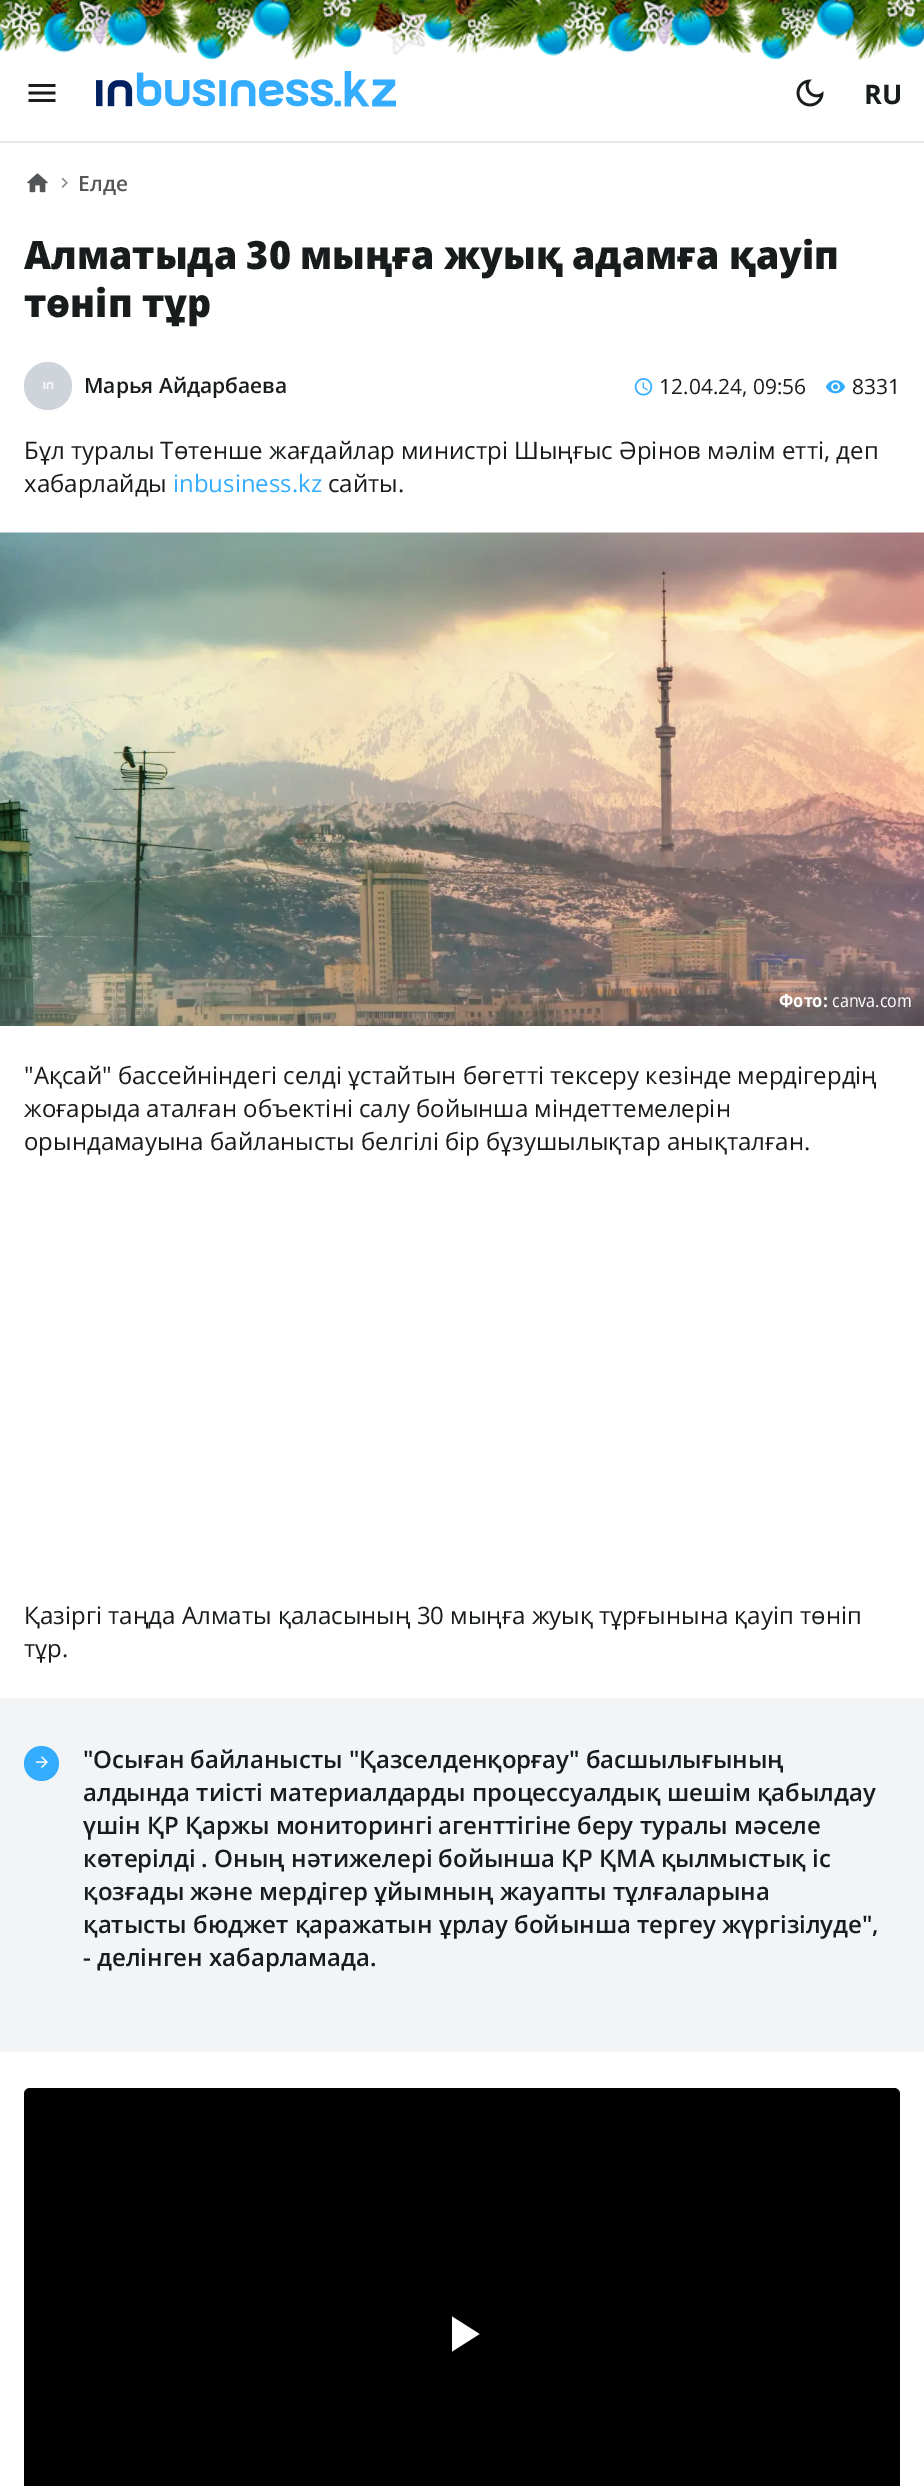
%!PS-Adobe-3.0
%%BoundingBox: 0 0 924 2486
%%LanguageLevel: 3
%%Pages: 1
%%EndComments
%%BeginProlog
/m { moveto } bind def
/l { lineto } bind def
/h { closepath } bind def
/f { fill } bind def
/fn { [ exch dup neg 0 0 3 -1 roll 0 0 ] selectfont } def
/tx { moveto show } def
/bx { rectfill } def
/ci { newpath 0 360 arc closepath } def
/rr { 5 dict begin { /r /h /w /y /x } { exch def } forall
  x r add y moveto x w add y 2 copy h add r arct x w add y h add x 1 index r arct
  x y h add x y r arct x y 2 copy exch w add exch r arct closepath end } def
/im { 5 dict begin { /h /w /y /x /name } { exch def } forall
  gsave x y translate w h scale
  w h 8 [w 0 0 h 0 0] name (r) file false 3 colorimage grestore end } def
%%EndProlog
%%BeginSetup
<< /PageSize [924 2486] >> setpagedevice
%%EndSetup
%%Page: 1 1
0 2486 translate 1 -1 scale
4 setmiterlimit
1 setgray
0 0 924 2486 bx
(image0.raw) 0 0 924 60 im
0.902 setgray
0 141 924 2 bx
(image1.raw) 28 84 28 18 im
(image2.raw) 96 71 300 36 im
(image3.raw) 796 79 28 28 im
/OpenSans-Bold 27 fn
0.098 0.11 0.114 setrgbcolor
(RU) 864 104 tx
(image4.raw) 27 173 21 20 im
(image5.raw) 61 177 7 11 im
/OpenSans-SemiBold 21 fn
0.325 0.333 0.337 setrgbcolor
(Елде) 78 191 tx
/OpenSans-ExtraBold 39 fn
0.098 0.11 0.114 setrgbcolor
(Алматыда 30 мыңға жуық адамға қауіп) 24 269 tx
(төніп тұр) 24 317 tx
0.808 0.831 0.855 setrgbcolor
48 386 24 ci f
(image6.raw) 43 381 11 8 im
/OpenSans-SemiBold 21 fn
0.098 0.11 0.114 setrgbcolor
(Марья Айдарбаева) 84 393 tx
(image7.raw) 634 378 19 18 im
/OpenSans-Regular 21 fn
(12.04.24, 09:56) 659 394 tx
(image8.raw) 825 380 21 14 im
(8331) 852 394 tx
/OpenSans-Regular 24 fn
(Бұл туралы Төтенше жағдайлар министрі Шыңғыс Әрінов мәлім етті, деп) 24 459 tx
(хабарлайды) 24 492 tx
0.208 0.678 1 setrgbcolor
(inbusiness.kz) 173 492 tx
0.098 0.11 0.114 setrgbcolor
(сайты.) 328 492 tx
(image9.raw) 0 532 924 494 im
/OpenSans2-Bold 18 fn
1 setgray
(Фото:) 779 1007 tx
/OpenSans2-Regular 18 fn
(canva.com) 832 1007 tx
/OpenSans-Regular 24 fn
0.098 0.11 0.114 setrgbcolor
("Ақсай" бассейніндегі селді ұстайтын бөгетті тексеру кезінде мердігердің) 24 1084 tx
(жоғарыда аталған объектіні салу бойынша міндеттемелерін) 24 1117 tx
(орындамауына байланысты белгілі бір бұзушылықтар анықталған.) 24 1150 tx
(Қазіргі таңда Алматы қаласының 30 мыңға жуық тұрғынына қауіп төніп) 24 1624 tx
(тұр.) 24 1657 tx
0.949 0.957 0.965 setrgbcolor
0 1698 924 354 bx
0.208 0.678 1 setrgbcolor
41.5 1763.5 17.5 ci f
(image10.raw) 36 1756 12 12 im
/OpenSans-SemiBold 24 fn
0.098 0.11 0.114 setrgbcolor
("Осыған байланысты "Қазселденқорғау" басшылығының) 83 1768 tx
(алдында тиісті материалдарды процессуалдық шешім қабылдау) 83 1801 tx
(үшін ҚР Қаржы мониторингі агенттігіне беру туралы мәселе) 83 1834 tx
(көтерілді . Оның нәтижелері бойынша ҚР ҚМА қылмыстық іс) 83 1867 tx
(қозғады және мердігер ұйымның жауапты тұлғаларына) 83 1900 tx
(қатысты бюджет қаражатын ұрлау бойынша тергеу жүргізілуде",) 83 1933 tx
(- делінген хабарламада.) 83 1966 tx
0 setgray
24 2088 876 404 6 rr f
1 setgray
452 2316.5 m 452 2351.5 l 479.5 2334 l h f
showpage
%%EOF
